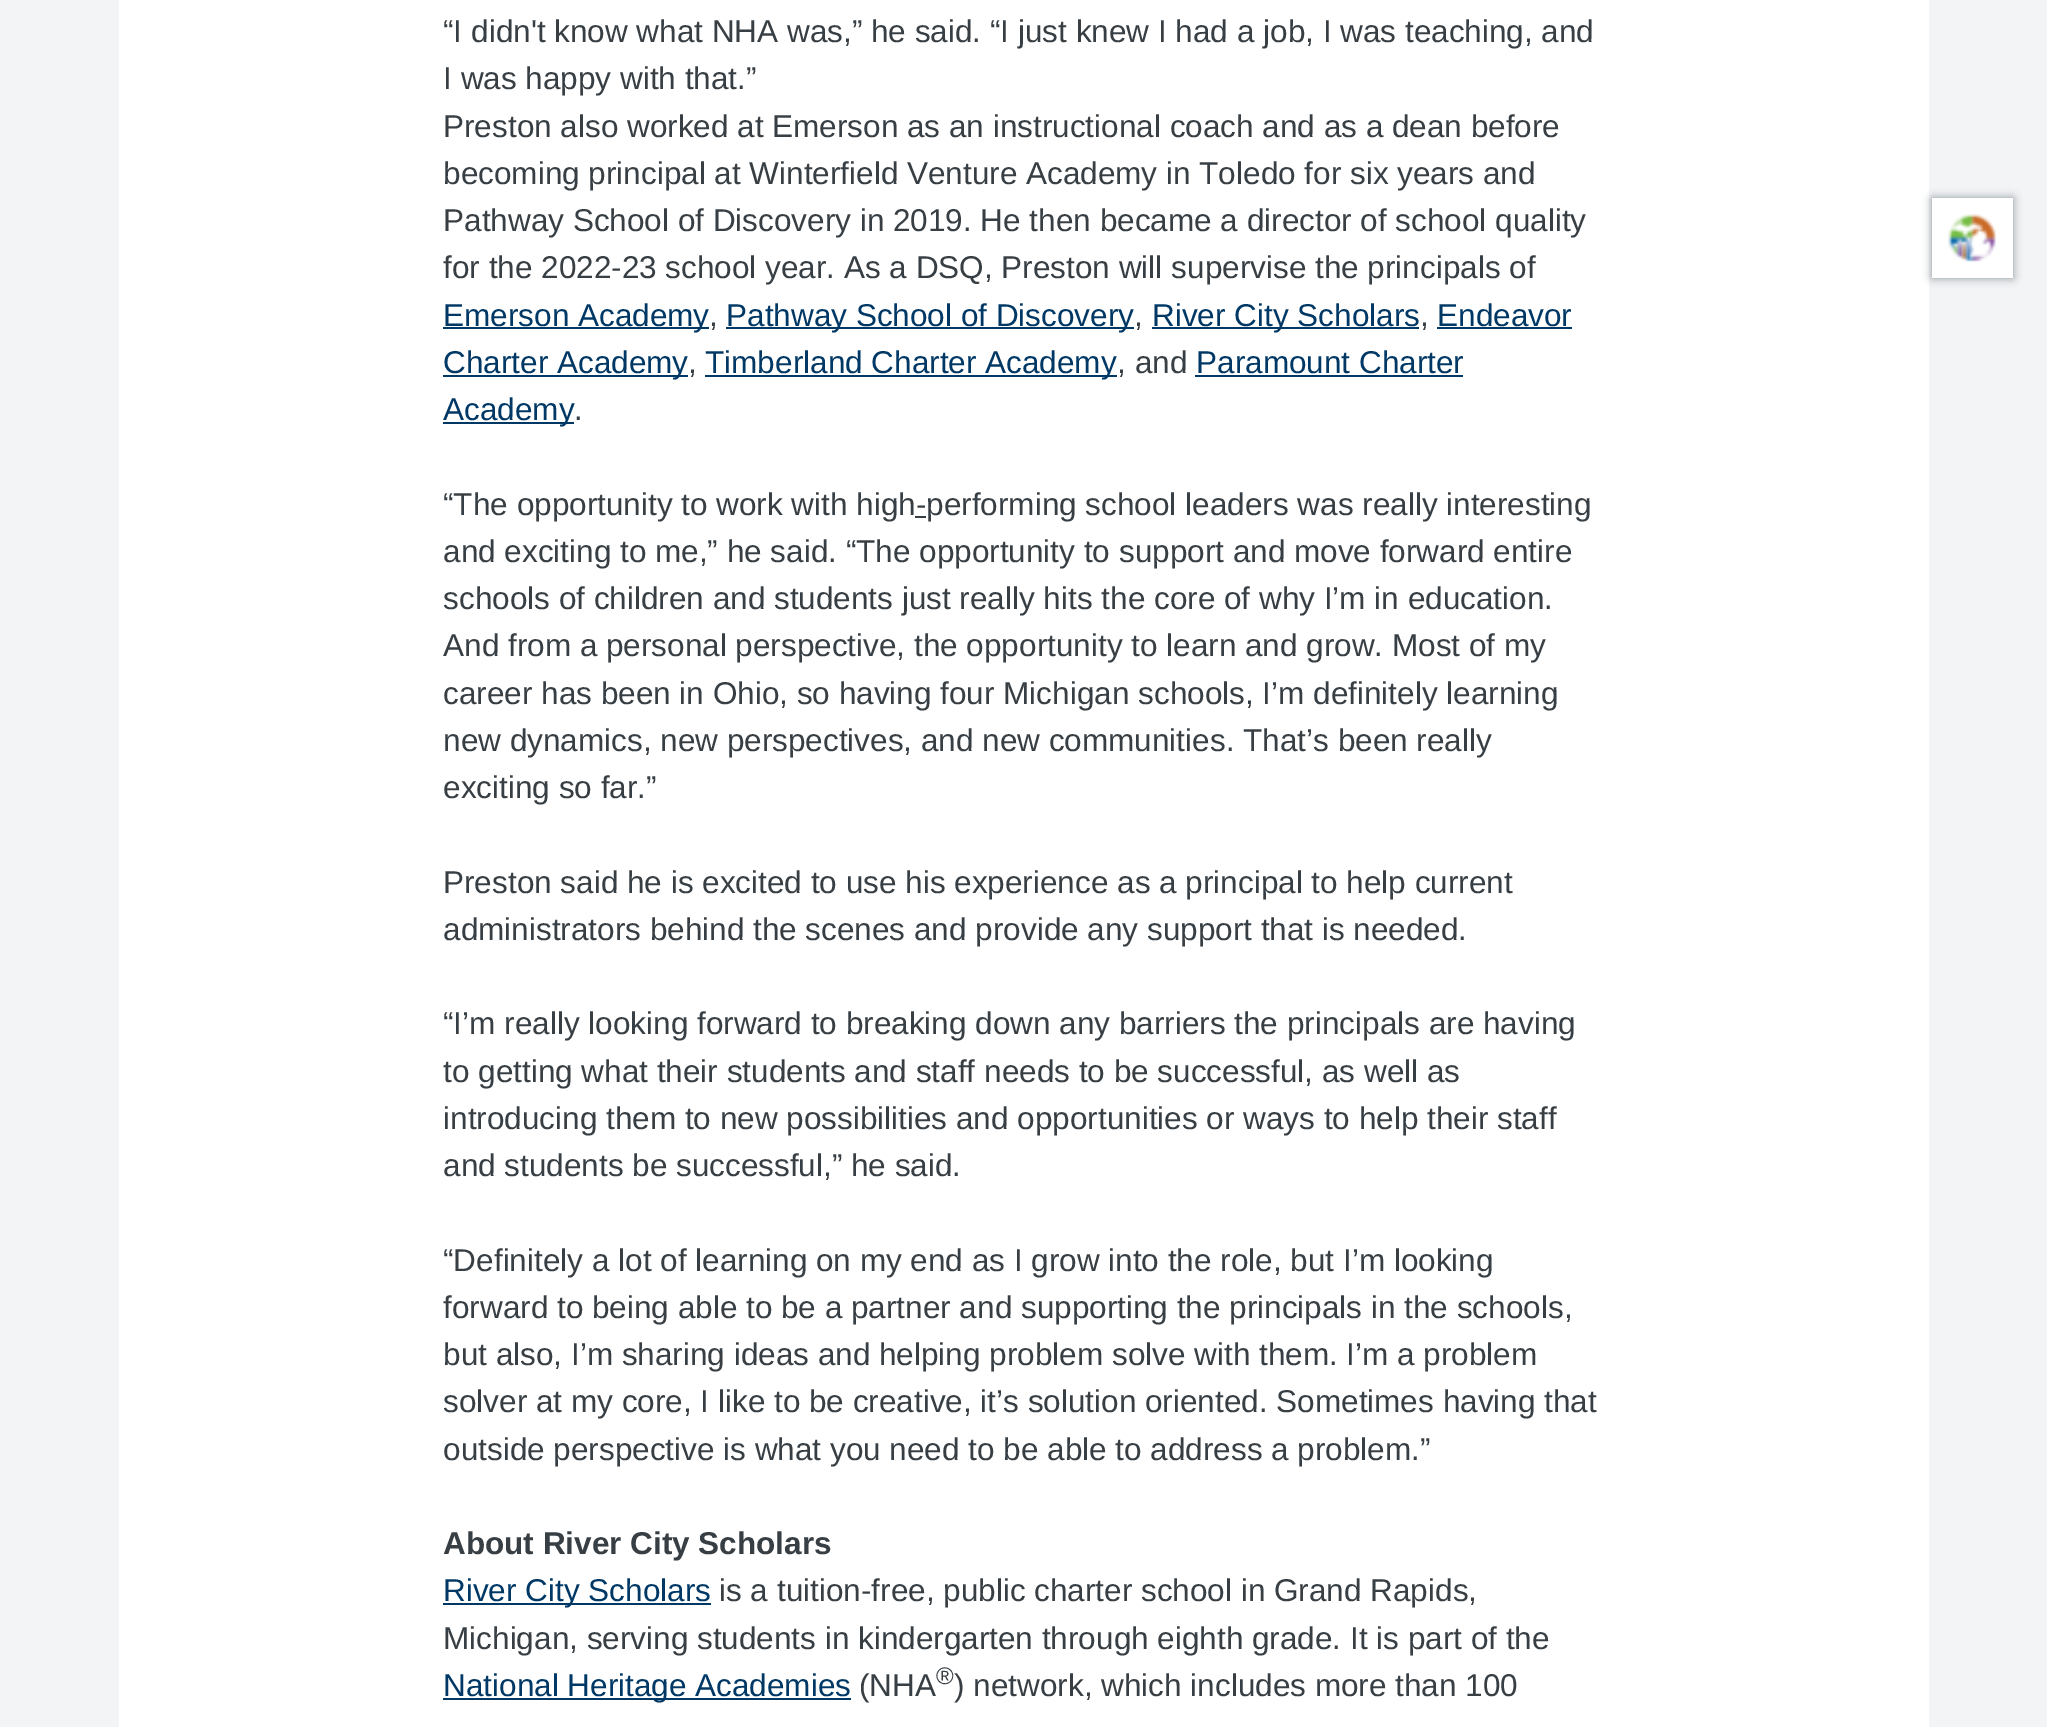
%!PS-Adobe-3.0
%%BoundingBox: 0 0 2047 1727
%%LanguageLevel: 3
%%Pages: 1
%%EndComments
%%BeginProlog
/fn { [ exch dup neg 0 0 3 -1 roll 0 0 ] selectfont } def
/tx { moveto show } def
/bx { rectfill } def
/al { dup .setfillconstantalpha .setstrokeconstantalpha } def
/rr { 5 dict begin { /r /h /w /y /x } { exch def } forall
  x r add y moveto x w add y 2 copy h add r arct x w add y h add x 1 index r arct
  x y h add x y r arct x y 2 copy exch w add exch r arct closepath end } def
/sh { 12 dict begin { /a /b /q /h /w /y /x } { exch def } forall gsave /was 0 def
  9 -2 -9 { dup b mul 4 div /e exch def 1 sub .425 mul 2.718 exch exp 1 add a .99 .min exch div /now exch def
    1 1 now sub 1 was sub div sub al /was now def
    w h .min e 2 mul add 0 gt { x e sub y e sub w e 2 mul add h e 2 mul add
      q e add b .6 mul add w h .min 2 div e add .min 0 .max rr fill } if } for grestore end } def
/im { 5 dict begin { /h /w /y /x /name } { exch def } forall
  gsave x y translate w h scale
  w h 8 [w 0 0 h 0 0] name (r) file false 3 colorimage grestore end } def
%%EndProlog
%%BeginSetup
<< /PageSize [2047 1727] /PageUsesTransparency true >> setpagedevice
%%EndSetup
%%Page: 1 1
0 .pushpdf14devicefilter
0 1727 translate 1 -1 scale
4 setmiterlimit
0.953 0.957 0.961 setrgbcolor
0 0 2047 1727 bx
1 setgray
119 0 1810 1727 bx
/LiberationSans-Regular 31.5 fn
0.22 0.247 0.267 setrgbcolor
(“I didn't know what NHA was,” he said. “I just knew I had a job, I was teaching, and) 443 42 tx
(I was happy with that.”) 443 89 tx
(Preston also worked at Emerson as an instructional coach and as a dean before) 443 137 tx
(becoming principal at Winterfield Venture Academy in Toledo for six years and) 443 184 tx
(Pathway School of Discovery in 2019. He then became a director of school quality) 443 231 tx
(for the 2022-23 school year. As a DSQ, Preston will supervise the principals of) 443 278 tx
0 0.22 0.396 setrgbcolor
443 327 266 2 bx
(Emerson Academy) 443 326 tx
0.22 0.247 0.267 setrgbcolor
(,) 709 326 tx
0 0.22 0.396 setrgbcolor
726 327 408 2 bx
(Pathway School of Discovery) 726 326 tx
0.22 0.247 0.267 setrgbcolor
(,) 1134 326 tx
0 0.22 0.396 setrgbcolor
1152 327 267 2 bx
(River City Scholars) 1152 326 tx
0.22 0.247 0.267 setrgbcolor
(,) 1420 326 tx
0 0.22 0.396 setrgbcolor
(Endeavor) 1437 326 tx
1437 327 135 2 bx
443 375 245 2 bx
(Charter Academy) 443 373 tx
0.22 0.247 0.267 setrgbcolor
(,) 688 373 tx
0 0.22 0.396 setrgbcolor
705 375 412 2 bx
(Timberland Charter Academy) 705 373 tx
0.22 0.247 0.267 setrgbcolor
(, and) 1117 373 tx
0 0.22 0.396 setrgbcolor
(Paramount Charter) 1196 373 tx
1195 375 268 2 bx
443 422 131 2 bx
(Academy) 443 420 tx
0.22 0.247 0.267 setrgbcolor
(.) 574 420 tx
(“The opportunity to work with high-performing school leaders was really interesting) 443 515 tx
915 516 11 2 bx
(and exciting to me,” he said. “The opportunity to support and move forward entire) 443 562 tx
(schools of children and students just really hits the core of why I’m in education.) 443 609 tx
(And from a personal perspective, the opportunity to learn and grow. Most of my) 443 656 tx
(career has been in Ohio, so having four Michigan schools, I’m definitely learning) 443 704 tx
(new dynamics, new perspectives, and new communities. That’s been really) 443 751 tx
(exciting so far.”) 443 798 tx
(Preston said he is excited to use his experience as a principal to help current) 443 893 tx
(administrators behind the scenes and provide any support that is needed.) 443 940 tx
(“I’m really looking forward to breaking down any barriers the principals are having) 443 1034 tx
(to getting what their students and staff needs to be successful, as well as) 443 1082 tx
(introducing them to new possibilities and opportunities or ways to help their staff) 443 1129 tx
(and students be successful,” he said.) 443 1176 tx
(“Definitely a lot of learning on my end as I grow into the role, but I’m looking) 443 1271 tx
(forward to being able to be a partner and supporting the principals in the schools,) 443 1318 tx
(but also, I’m sharing ideas and helping problem solve with them. I’m a problem) 443 1365 tx
(solver at my core, I like to be creative, it’s solution oriented. Sometimes having that) 443 1412 tx
(outside perspective is what you need to be able to address a problem.”) 443 1460 tx
/LiberationSans-Bold 31.5 fn
(About River City Scholars) 443 1554 tx
0 0.22 0.396 setrgbcolor
443 1603 268 2 bx
/LiberationSans-Regular 31.5 fn
(River City Scholars) 443 1601 tx
0.22 0.247 0.267 setrgbcolor
(is a tuition-free, public charter school in Grand Rapids,) 719 1601 tx
(Michigan, serving students in kindergarten through eighth grade. It is part of the) 443 1649 tx
0 0.22 0.396 setrgbcolor
443 1698 408 2 bx
(National Heritage Academies) 443 1696 tx
0.22 0.247 0.267 setrgbcolor
(\(NHA) 859 1696 tx
/LiberationSans-Regular 24 fn
(®) 936 1684 tx
/LiberationSans-Regular 31.5 fn
(\) network, which includes more than 100) 954 1696 tx
0.537 0.584 0.616 setrgbcolor
1932 198 81 80 0 4.5 1 sh
1 setgray
1932 198 81 80 bx
(image0.raw) 1948 214 48 48 im
.poppdf14devicefilter showpage
%%EOF
